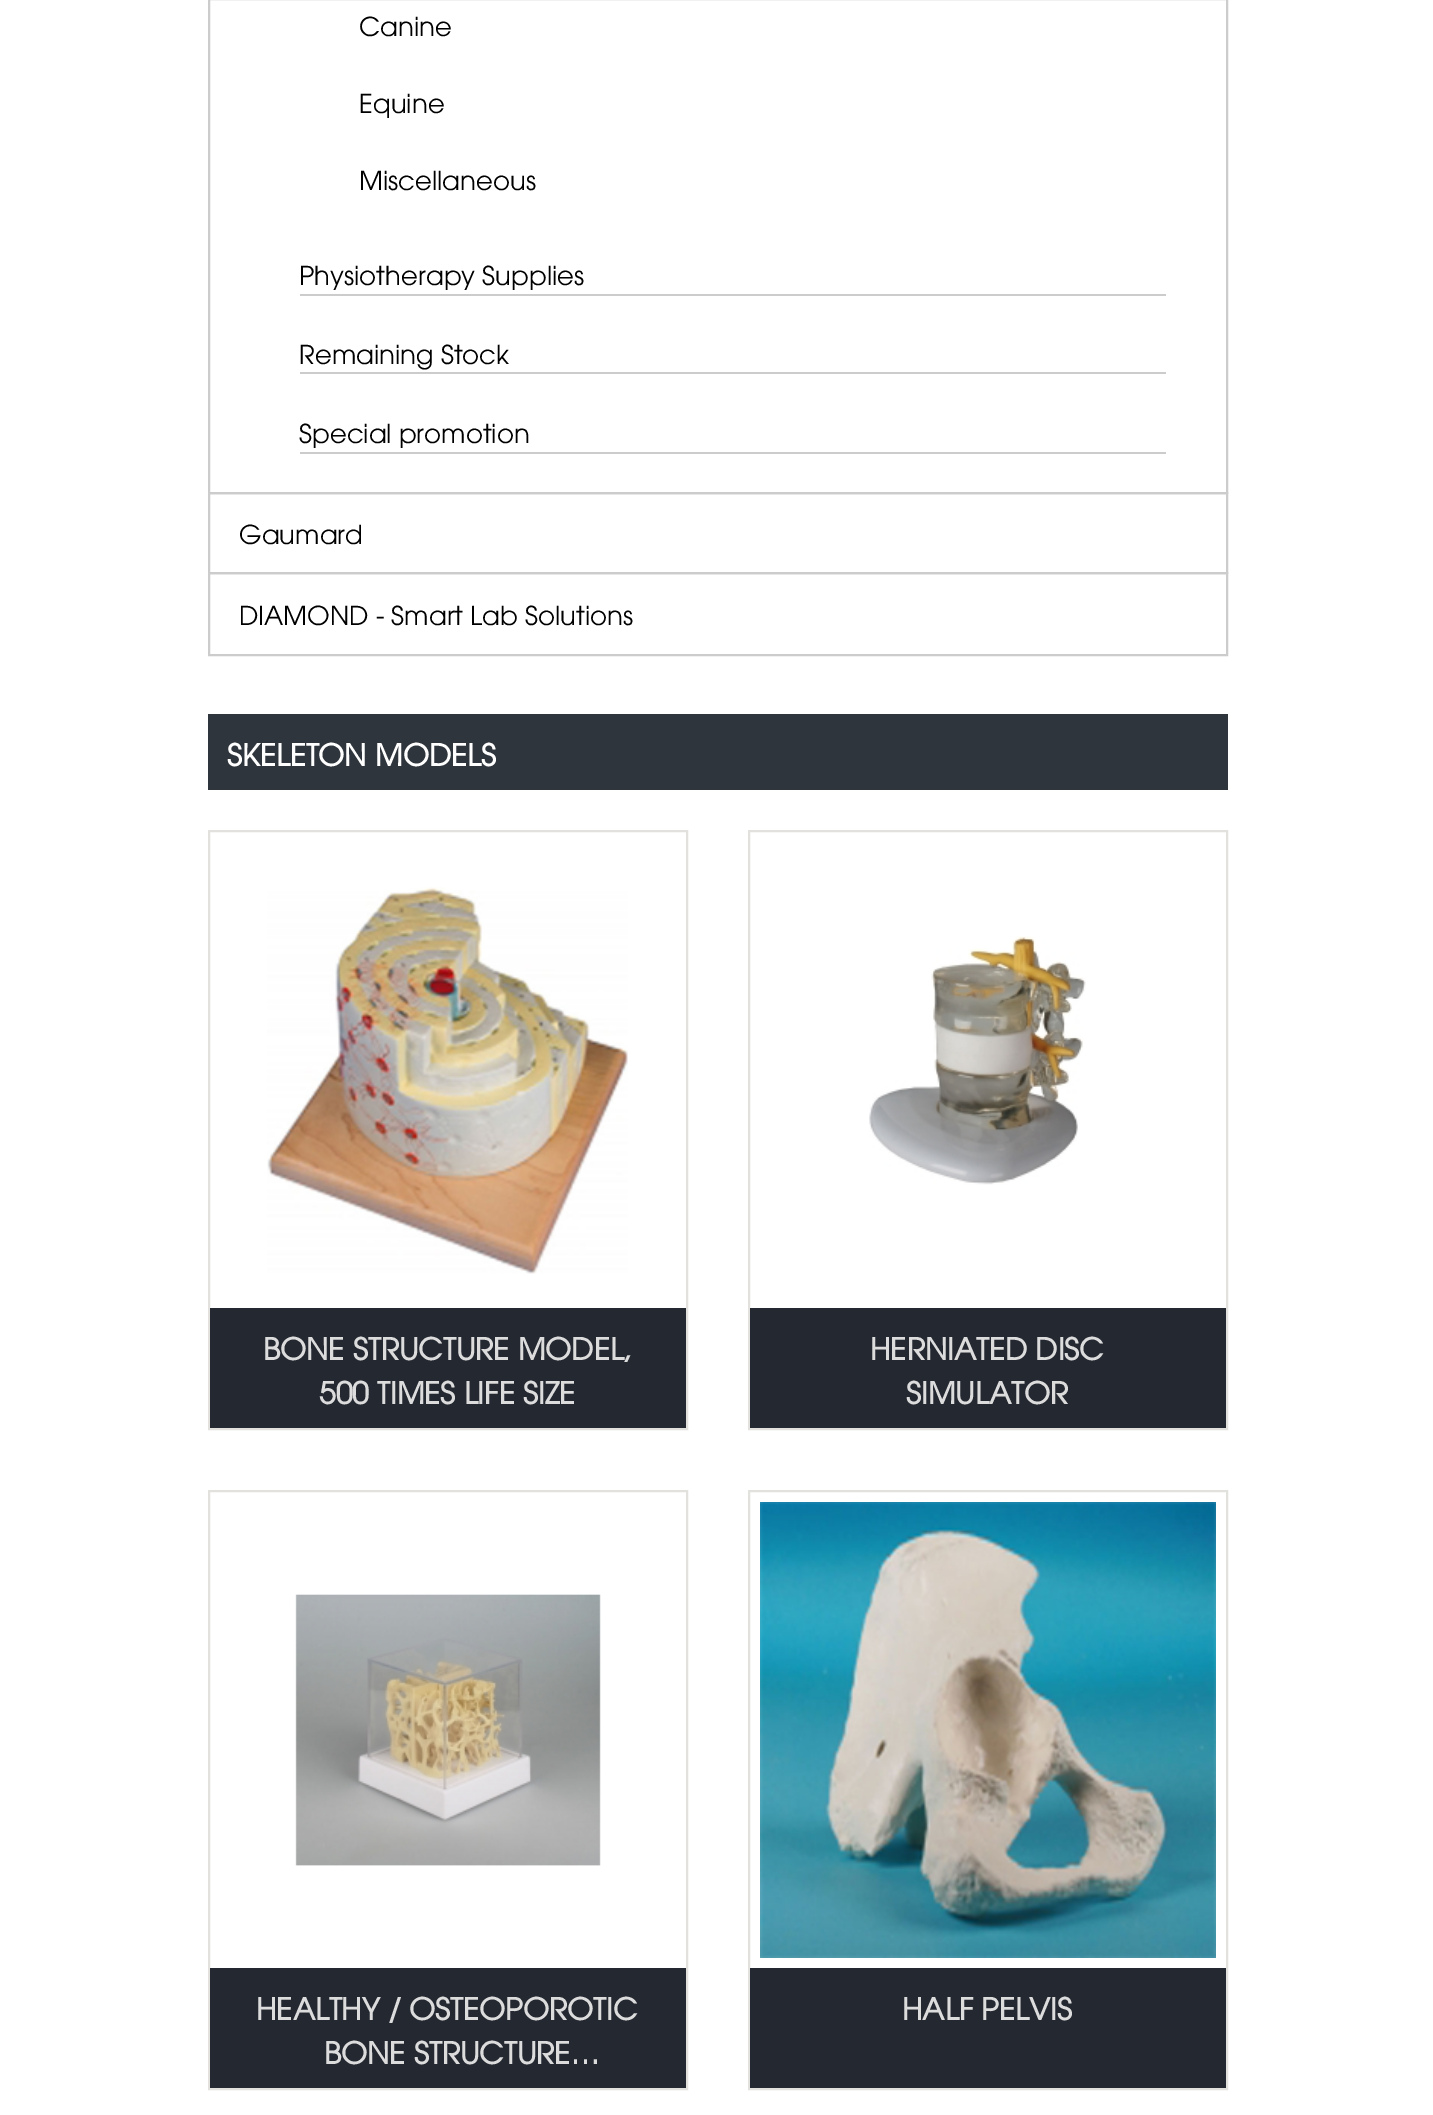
%!PS-Adobe-3.0
%%BoundingBox: 0 0 1433 2115
%%LanguageLevel: 3
%%Pages: 1
%%EndComments
%%BeginProlog
/w { setlinewidth } bind def
/fn { [ exch dup neg 0 0 3 -1 roll 0 0 ] selectfont } def
/tx { moveto show } def
/bx { rectfill } def
/im { 5 dict begin { /h /w /y /x /name } { exch def } forall
  gsave x y translate w h scale
  w h 8 [w 0 0 h 0 0] name (r) file false 3 colorimage grestore end } def
%%EndProlog
%%BeginSetup
<< /PageSize [1433 2115] >> setpagedevice
%%EndSetup
%%Page: 1 1
0 2115 translate 1 -1 scale
4 setmiterlimit
1 setgray
0 0 1433 2115 bx
0.8 setgray
2 w
209 -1 1018 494 rectstroke
/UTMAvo-Regular 26 fn
0 setgray
(Canine) 359 36 tx
(Equine) 359 113 tx
(Miscellaneous) 359 190 tx
(Physiotherapy Supplies) 299 285 tx
0.8 setgray
300 294 866 2 bx
0 setgray
(Remaining Stock) 299 364 tx
0.8 setgray
300 372 866 2 bx
0 setgray
(Special promotion) 299 443 tx
0.8 setgray
300 452 866 2 bx
209 493 1018 80 rectstroke
0 setgray
(Gaumard) 239 544 tx
0.8 setgray
209 573 1018 82 rectstroke
0 setgray
(DIAMOND - Smart Lab Solutions) 239 625 tx
0.184 0.208 0.239 setrgbcolor
208 714 1020 76 bx
/UTMAvo-Bold 30 fn
1 setgray
(SKELETON MODELS) 227 766 tx
0.89 0.882 0.871 setrgbcolor
209 831 478 598 rectstroke
(image0.raw) 267 887 361 387 im
0.141 0.157 0.192 setrgbcolor
210 1308 476 120 bx
0.863 setgray
(BONE STRUCTURE MODEL,) 263 1360 tx
(500 TIMES LIFE SIZE) 319 1404 tx
0.89 0.882 0.871 setrgbcolor
749 831 478 598 rectstroke
(image1.raw) 869 936 217 249 im
0.141 0.157 0.192 setrgbcolor
750 1308 476 120 bx
0.863 setgray
(HERNIATED DISC) 870 1360 tx
(SIMULATOR) 906 1404 tx
0.89 0.882 0.871 setrgbcolor
209 1491 478 598 rectstroke
(image2.raw) 295 1594 306 272 im
0.141 0.157 0.192 setrgbcolor
210 1968 476 120 bx
0.863 setgray
(HEALTHY / OSTEOPOROTIC) 256 2020 tx
(BONE STRUCTURE…) 324 2064 tx
0.89 0.882 0.871 setrgbcolor
749 1491 478 598 rectstroke
(image3.raw) 760 1502 456 456 im
0.141 0.157 0.192 setrgbcolor
750 1968 476 120 bx
0.863 setgray
(HALF PELVIS) 902 2020 tx
showpage
%%EOF
